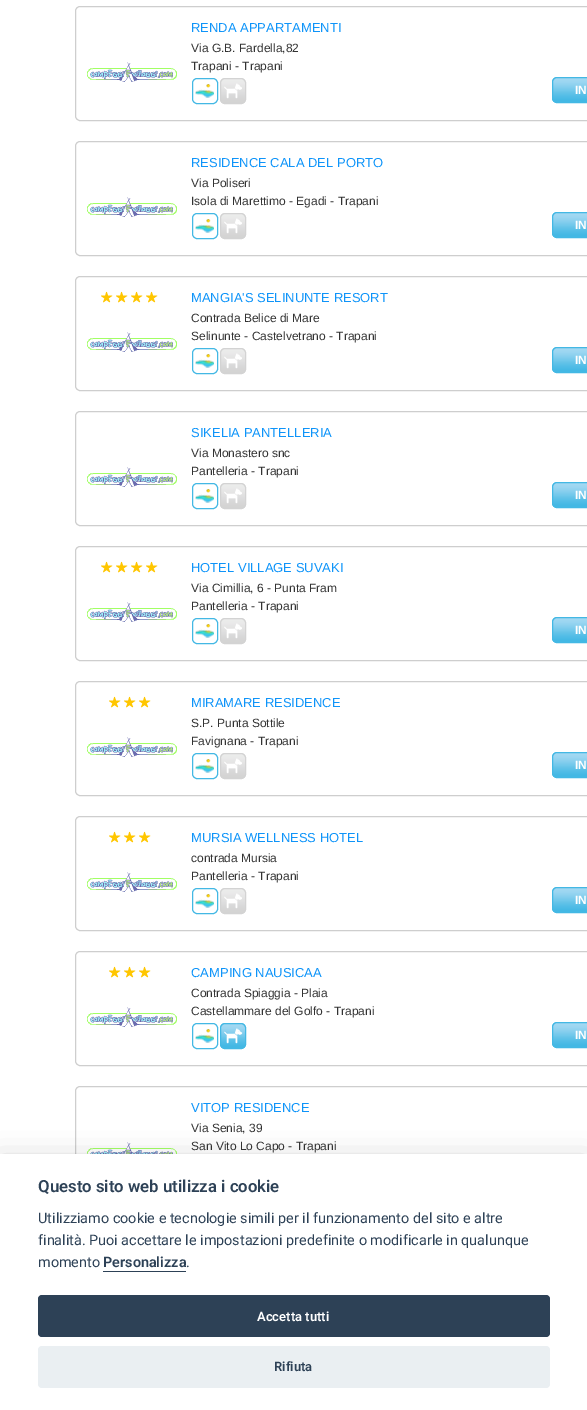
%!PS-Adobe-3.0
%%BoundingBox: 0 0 587 1410
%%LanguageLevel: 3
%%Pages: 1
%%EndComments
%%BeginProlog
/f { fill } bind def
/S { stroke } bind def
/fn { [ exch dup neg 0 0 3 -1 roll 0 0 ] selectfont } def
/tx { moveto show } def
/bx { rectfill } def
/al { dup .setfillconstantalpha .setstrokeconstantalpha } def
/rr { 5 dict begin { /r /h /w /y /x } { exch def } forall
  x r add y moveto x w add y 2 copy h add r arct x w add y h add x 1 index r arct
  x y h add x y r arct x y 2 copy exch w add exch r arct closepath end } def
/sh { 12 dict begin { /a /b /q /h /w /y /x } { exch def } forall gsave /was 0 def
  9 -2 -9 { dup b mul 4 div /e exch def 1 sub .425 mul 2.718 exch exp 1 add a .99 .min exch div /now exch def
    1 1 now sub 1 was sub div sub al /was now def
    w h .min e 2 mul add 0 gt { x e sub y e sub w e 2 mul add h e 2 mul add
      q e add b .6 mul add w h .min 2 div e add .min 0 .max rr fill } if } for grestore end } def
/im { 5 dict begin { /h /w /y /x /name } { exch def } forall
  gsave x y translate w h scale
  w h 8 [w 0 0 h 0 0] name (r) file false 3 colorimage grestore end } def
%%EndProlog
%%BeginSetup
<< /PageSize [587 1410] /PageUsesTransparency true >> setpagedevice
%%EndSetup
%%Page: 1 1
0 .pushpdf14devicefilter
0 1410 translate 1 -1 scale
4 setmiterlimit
1 setgray
0 0 587 1410 bx
0.808 setgray
75.5 6.5 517 114 4.5 rr S
/LiberationSans-Regular 13 fn
0.055 0.58 0.976 setrgbcolor
(RENDA APPARTAMENTI) 191 32 tx
(image0.raw) 87 62 90 20 im
/LiberationSans-Regular 12 fn
0.2 setgray
(Via G.B. Fardella,82) 191 52 tx
(Trapani - Trapani) 191 70 tx
0.263 0.722 0.894 setrgbcolor
192.5 78.5 25 25 4.5 rr S
(image1.raw) 195 84 19 14 im
(image2.raw) 220 78 26 26 im
0.827 setgray
220.5 78.5 25 25 4.5 rr S
(image3.raw) 224 83 18 16 im
(image4.raw) 552 77 35 26 im
0.263 0.722 0.894 setrgbcolor
552.5 77.5 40 25 4.5 rr S
/LiberationSans-Bold 12 fn
1 setgray
(IN) 575 94 tx
0.808 setgray
75.5 141.5 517 114 4.5 rr S
/LiberationSans-Regular 13 fn
0.055 0.58 0.976 setrgbcolor
(RESIDENCE CALA DEL PORTO) 191 167 tx
(image0.raw) 87 197 90 20 im
/LiberationSans-Regular 12 fn
0.2 setgray
(Via Poliseri) 191 187 tx
(Isola di Marettimo - Egadi - Trapani) 191 205 tx
0.263 0.722 0.894 setrgbcolor
192.5 213.5 25 25 4.5 rr S
(image1.raw) 195 219 19 14 im
(image2.raw) 220 213 26 26 im
0.827 setgray
220.5 213.5 25 25 4.5 rr S
(image3.raw) 224 218 18 16 im
(image4.raw) 552 212 35 26 im
0.263 0.722 0.894 setrgbcolor
552.5 212.5 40 25 4.5 rr S
/LiberationSans-Bold 12 fn
1 setgray
(IN) 575 229 tx
0.808 setgray
75.5 276.5 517 114 4.5 rr S
(image5.raw) 101 291 12 12 im
(image5.raw) 116 291 12 12 im
(image5.raw) 131 291 12 12 im
(image5.raw) 146 291 12 12 im
(image0.raw) 87 332 90 20 im
/LiberationSans-Regular 13 fn
0.055 0.58 0.976 setrgbcolor
(MANGIA'S SELINUNTE RESORT) 191 302 tx
/LiberationSans-Regular 12 fn
0.2 setgray
(Contrada Belice di Mare) 191 322 tx
(Selinunte - Castelvetrano - Trapani) 191 340 tx
0.263 0.722 0.894 setrgbcolor
192.5 348.5 25 25 4.5 rr S
(image1.raw) 195 354 19 14 im
(image2.raw) 220 348 26 26 im
0.827 setgray
220.5 348.5 25 25 4.5 rr S
(image3.raw) 224 353 18 16 im
(image4.raw) 552 347 35 26 im
0.263 0.722 0.894 setrgbcolor
552.5 347.5 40 25 4.5 rr S
/LiberationSans-Bold 12 fn
1 setgray
(IN) 575 364 tx
0.808 setgray
75.5 411.5 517 114 4.5 rr S
/LiberationSans-Regular 13 fn
0.055 0.58 0.976 setrgbcolor
(SIKELIA PANTELLERIA) 191 437 tx
(image0.raw) 87 467 90 20 im
/LiberationSans-Regular 12 fn
0.2 setgray
(Via Monastero snc) 191 457 tx
(Pantelleria - Trapani) 191 475 tx
0.263 0.722 0.894 setrgbcolor
192.5 483.5 25 25 4.5 rr S
(image1.raw) 195 489 19 14 im
(image2.raw) 220 483 26 26 im
0.827 setgray
220.5 483.5 25 25 4.5 rr S
(image3.raw) 224 488 18 16 im
(image4.raw) 552 482 35 26 im
0.263 0.722 0.894 setrgbcolor
552.5 482.5 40 25 4.5 rr S
/LiberationSans-Bold 12 fn
1 setgray
(IN) 575 499 tx
0.808 setgray
75.5 546.5 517 114 4.5 rr S
(image5.raw) 101 561 12 12 im
(image5.raw) 116 561 12 12 im
(image5.raw) 131 561 12 12 im
(image5.raw) 146 561 12 12 im
(image0.raw) 87 602 90 20 im
/LiberationSans-Regular 13 fn
0.055 0.58 0.976 setrgbcolor
(HOTEL VILLAGE SUVAKI) 191 572 tx
/LiberationSans-Regular 12 fn
0.2 setgray
(Via Cimillia, 6 - Punta Fram) 191 592 tx
(Pantelleria - Trapani) 191 610 tx
0.263 0.722 0.894 setrgbcolor
192.5 618.5 25 25 4.5 rr S
(image1.raw) 195 624 19 14 im
(image2.raw) 220 618 26 26 im
0.827 setgray
220.5 618.5 25 25 4.5 rr S
(image3.raw) 224 623 18 16 im
(image4.raw) 552 617 35 26 im
0.263 0.722 0.894 setrgbcolor
552.5 617.5 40 25 4.5 rr S
/LiberationSans-Bold 12 fn
1 setgray
(IN) 575 634 tx
0.808 setgray
75.5 681.5 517 114 4.5 rr S
(image5.raw) 109 696 12 12 im
(image5.raw) 124 696 12 12 im
(image5.raw) 139 696 12 12 im
(image0.raw) 87 737 90 20 im
/LiberationSans-Regular 13 fn
0.055 0.58 0.976 setrgbcolor
(MIRAMARE RESIDENCE) 191 707 tx
/LiberationSans-Regular 12 fn
0.2 setgray
(S.P. Punta Sottile) 191 727 tx
(Favignana - Trapani) 191 745 tx
0.263 0.722 0.894 setrgbcolor
192.5 753.5 25 25 4.5 rr S
(image1.raw) 195 759 19 14 im
(image2.raw) 220 753 26 26 im
0.827 setgray
220.5 753.5 25 25 4.5 rr S
(image3.raw) 224 758 18 16 im
(image4.raw) 552 752 35 26 im
0.263 0.722 0.894 setrgbcolor
552.5 752.5 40 25 4.5 rr S
/LiberationSans-Bold 12 fn
1 setgray
(IN) 575 769 tx
0.808 setgray
75.5 816.5 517 114 4.5 rr S
(image5.raw) 109 831 12 12 im
(image5.raw) 124 831 12 12 im
(image5.raw) 139 831 12 12 im
(image0.raw) 87 872 90 20 im
/LiberationSans-Regular 13 fn
0.055 0.58 0.976 setrgbcolor
(MURSIA WELLNESS HOTEL) 191 842 tx
/LiberationSans-Regular 12 fn
0.2 setgray
(contrada Mursia) 191 862 tx
(Pantelleria - Trapani) 191 880 tx
0.263 0.722 0.894 setrgbcolor
192.5 888.5 25 25 4.5 rr S
(image1.raw) 195 894 19 14 im
(image2.raw) 220 888 26 26 im
0.827 setgray
220.5 888.5 25 25 4.5 rr S
(image3.raw) 224 893 18 16 im
(image4.raw) 552 887 35 26 im
0.263 0.722 0.894 setrgbcolor
552.5 887.5 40 25 4.5 rr S
/LiberationSans-Bold 12 fn
1 setgray
(IN) 575 904 tx
0.808 setgray
75.5 951.5 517 114 4.5 rr S
(image5.raw) 109 966 12 12 im
(image5.raw) 124 966 12 12 im
(image5.raw) 139 966 12 12 im
(image0.raw) 87 1007 90 20 im
/LiberationSans-Regular 13 fn
0.055 0.58 0.976 setrgbcolor
(CAMPING NAUSICAA) 191 977 tx
/LiberationSans-Regular 12 fn
0.2 setgray
(Contrada Spiaggia - Plaia) 191 997 tx
(Castellammare del Golfo - Trapani) 191 1015 tx
0.263 0.722 0.894 setrgbcolor
192.5 1023.5 25 25 4.5 rr S
(image1.raw) 195 1029 19 14 im
(image6.raw) 220 1023 26 26 im
220.5 1023.5 25 25 4.5 rr S
(image7.raw) 224 1028 19 16 im
(image4.raw) 552 1022 35 26 im
552.5 1022.5 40 25 4.5 rr S
/LiberationSans-Bold 12 fn
1 setgray
(IN) 575 1039 tx
0.808 setgray
75.5 1086.5 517 114 4.5 rr S
/LiberationSans-Regular 13 fn
0.055 0.58 0.976 setrgbcolor
(VITOP RESIDENCE) 191 1112 tx
(image8.raw) 87 1142 90 12 im
/LiberationSans-Regular 12 fn
0.2 setgray
(Via Senia, 39) 191 1132 tx
(San Vito Lo Capo - Trapani) 191 1150 tx
0.008 0.008 0.012 setrgbcolor
0 1164 587 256 0 15 0.28 sh
1 setgray
0 1154 587 256 bx
/Roboto-SemiBold 16.75 fn
0.176 0.255 0.337 setrgbcolor
(Questo sito web utilizza i cookie) 38 1192 tx
/Roboto-Regular 14.4 fn
(Utilizziamo cookie e tecnologie simili per il funzionamento del sito e altre) 38 1223 tx
(finalità. Puoi accettare le impostazioni predefinite o modificarle in qualunque) 38 1245 tx
(momento) 38 1267 tx
/Roboto-SemiBold 14.4 fn
(Personalizza) 103 1267 tx
103 1271 83 1 bx
/Roboto-Regular 14.4 fn
(.) 186 1267 tx
38 1295 512 42 4 rr f
/Roboto-SemiBold 13 fn
1 setgray
(Accetta tutti) 257 1321 tx
0.918 0.937 0.949 setrgbcolor
38 1346 512 42 4 rr f
0.176 0.255 0.337 setrgbcolor
(Rifiuta) 274 1371 tx
.poppdf14devicefilter showpage
%%EOF
